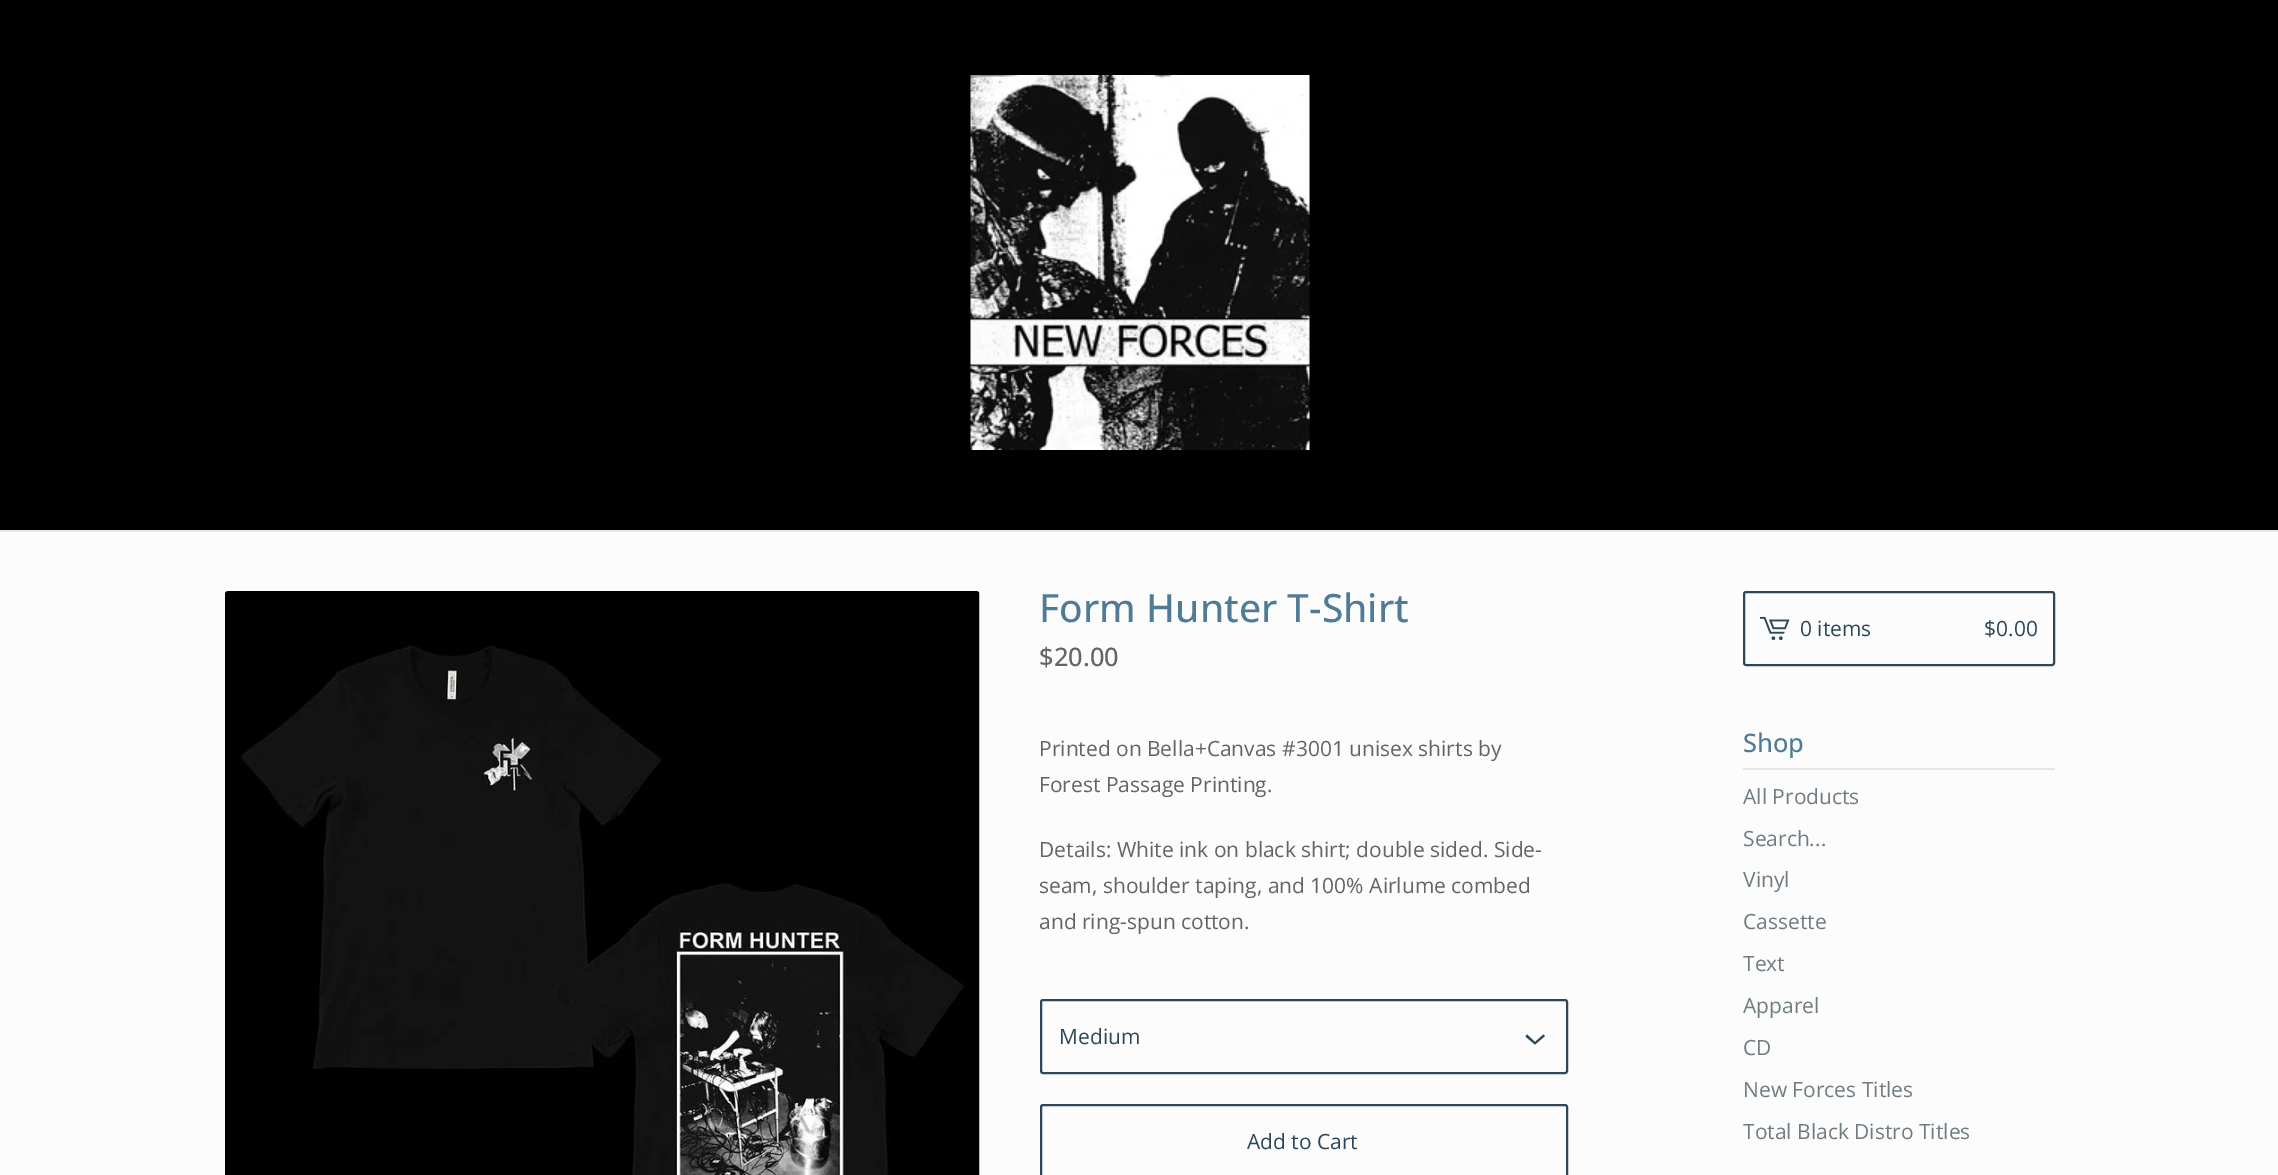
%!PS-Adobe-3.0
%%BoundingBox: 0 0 2278 1175
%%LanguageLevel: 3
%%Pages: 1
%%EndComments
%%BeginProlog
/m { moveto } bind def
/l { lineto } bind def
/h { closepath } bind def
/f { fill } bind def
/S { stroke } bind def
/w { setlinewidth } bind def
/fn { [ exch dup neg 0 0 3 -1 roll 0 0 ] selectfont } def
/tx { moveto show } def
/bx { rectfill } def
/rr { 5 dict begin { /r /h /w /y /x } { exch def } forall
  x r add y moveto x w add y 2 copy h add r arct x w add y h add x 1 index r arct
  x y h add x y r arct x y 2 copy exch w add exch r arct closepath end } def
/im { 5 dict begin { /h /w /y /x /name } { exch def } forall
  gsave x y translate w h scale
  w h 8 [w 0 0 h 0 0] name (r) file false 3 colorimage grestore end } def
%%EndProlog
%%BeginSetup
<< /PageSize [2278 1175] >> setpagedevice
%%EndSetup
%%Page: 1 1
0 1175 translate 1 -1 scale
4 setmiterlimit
0.988 setgray
0 0 2278 1175 bx
0 setgray
0 0 2278 530 bx
0.898 setgray
0 530 2278 2 bx
(image0.raw) 970 75 340 375 im
(image1.raw) 225 591 755 584 im
/OpenSans-Medium 39 fn
0.314 0.482 0.588 setrgbcolor
(Form Hunter T-Shirt) 1039 622 tx
/OpenSans-Medium 25.5 fn
0.392 setgray
($20.00) 1039 666 tx
/OpenSans-Regular 21 fn
(Printed on Bella+Canvas #3001 unisex shirts by) 1039 756 tx
(Forest Passage Printing.) 1039 792 tx
(Details: White ink on black shirt; double sided. Side-) 1039 857 tx
(seam, shoulder taping, and 100% Airlume combed) 1039 893 tx
(and ring-spun cotton.) 1039 929 tx
0.169 0.278 0.349 setrgbcolor
2 w
1041 1000 526 73 2 rr S
(Medium) 1059 1044 tx
1545 1036 m 1535 1044.5 l 1525.5 1036.5 l 1527 1034.5 l 1535 1042 l 1543.5 1034.5 l h f
1041 1105 526 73 2 rr S
(Add to Cart) 1247 1149 tx
1744 592 310 73 2 rr S
(image2.raw) 1760 616 30 25 im
(0 items) 1800 636 tx
($0.00) 1984 636 tx
0.898 setgray
1743 768 312 2 bx
/OpenSans-Medium 25.5 fn
0.314 0.482 0.588 setrgbcolor
(Shop) 1743 752 tx
/OpenSans-Regular 21 fn
0.443 0.486 0.51 setrgbcolor
(All Products) 1743 804 tx
(Search...) 1743 846 tx
(Vinyl) 1743 887 tx
(Cassette) 1743 929 tx
(Text) 1743 971 tx
(Apparel) 1743 1013 tx
(CD) 1743 1055 tx
(New Forces Titles) 1743 1097 tx
(Total Black Distro Titles) 1743 1139 tx
showpage
%%EOF
